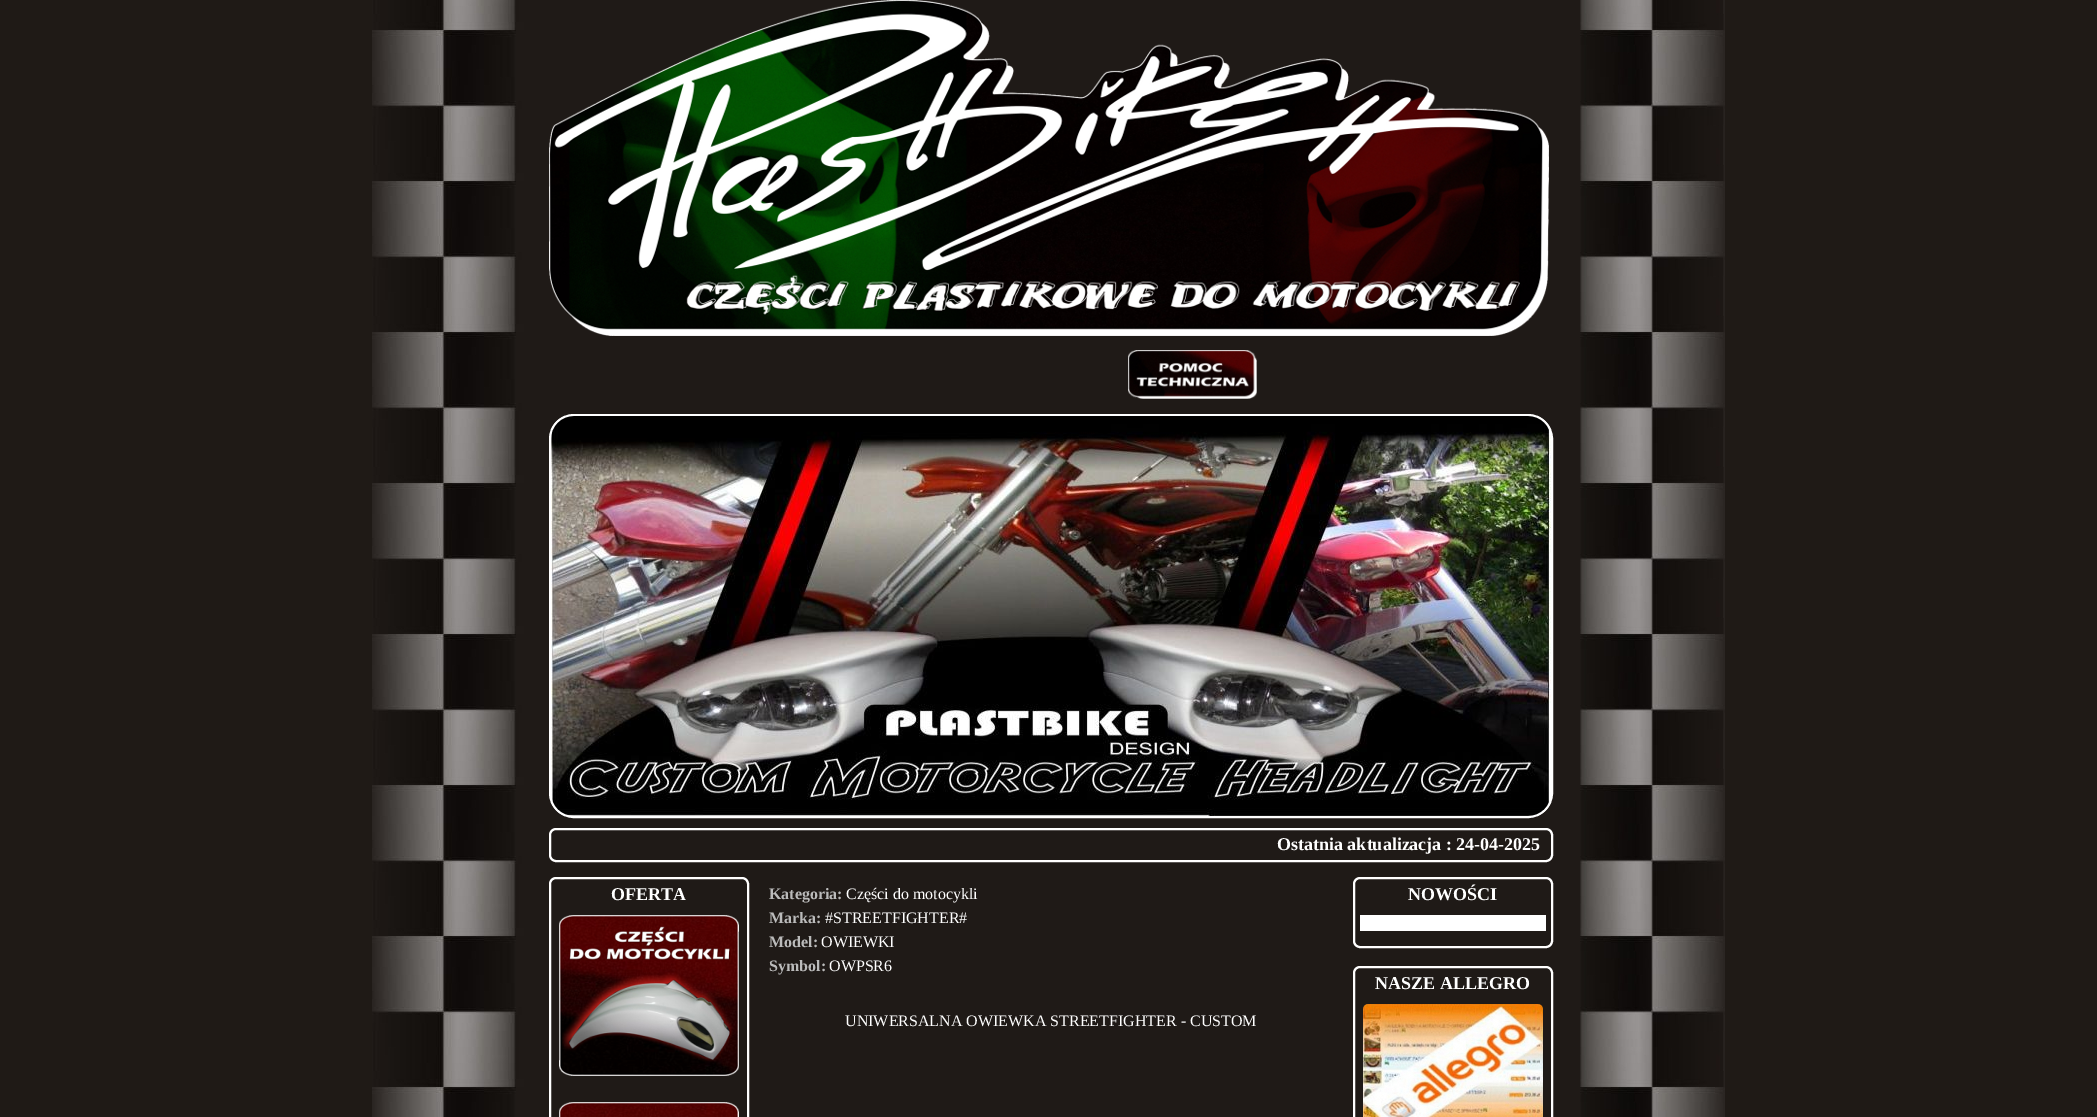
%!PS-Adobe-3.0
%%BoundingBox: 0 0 2097 1117
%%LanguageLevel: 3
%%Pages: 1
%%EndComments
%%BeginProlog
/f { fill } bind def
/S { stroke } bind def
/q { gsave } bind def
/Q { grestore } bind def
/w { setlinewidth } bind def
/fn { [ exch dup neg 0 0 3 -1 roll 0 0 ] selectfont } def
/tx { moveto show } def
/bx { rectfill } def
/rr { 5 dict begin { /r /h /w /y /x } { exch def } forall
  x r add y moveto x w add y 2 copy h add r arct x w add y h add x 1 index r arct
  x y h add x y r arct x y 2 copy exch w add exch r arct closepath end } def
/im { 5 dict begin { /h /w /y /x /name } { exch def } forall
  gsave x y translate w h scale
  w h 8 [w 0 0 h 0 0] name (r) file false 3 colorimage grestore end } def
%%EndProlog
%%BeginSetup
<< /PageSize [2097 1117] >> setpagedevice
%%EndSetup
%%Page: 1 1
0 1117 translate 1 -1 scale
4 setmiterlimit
0.122 0.102 0.086 setrgbcolor
0 0 2097 1117 bx
(image0.raw) 372 0 1353 1117 im
(image1.raw) 549 0 1000 336 im
(image2.raw) 1128 350 129 49 im
1 setgray
550 415 1002 402 24 rr q f Q
2 w
S
(image3.raw) 551 416 1000 400 im
550 829 1002 32 6 rr S
/LiberationSerif-Bold 18 fn
(Ostatnia aktualizacja : 24-04-2025) 1277 850 tx
550 878 198 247 6 rr S
(OFERTA) 611 900 tx
(image4.raw) 559 915 180 161 im
(image5.raw) 559 1102 180 15 im
/LiberationSerif-Bold 16 fn
0.733 setgray
(Kategoria:) 769 899 tx
/LiberationSerif-Regular 16 fn
1 setgray
(Części do motocykli) 846 899 tx
/LiberationSerif-Bold 16 fn
0.733 setgray
(Marka:) 769 923 tx
/LiberationSerif-Regular 16 fn
1 setgray
(#STREETFIGHTER#) 825 923 tx
/LiberationSerif-Bold 16 fn
0.733 setgray
(Model:) 769 947 tx
/LiberationSerif-Regular 16 fn
1 setgray
(OWIEWKI) 821 947 tx
/LiberationSerif-Bold 16 fn
0.733 setgray
(Symbol:) 769 971 tx
/LiberationSerif-Regular 16 fn
1 setgray
(OWPSR6) 829 971 tx
(UNIWERSALNA OWIEWKA STREETFIGHTER - CUSTOM) 845 1026 tx
1354 878 198 69 6 rr S
/LiberationSerif-Bold 18 fn
(NOWOŚCI) 1408 900 tx
1360 915 186 16 bx
1354 967 198 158 6 rr S
(NASZE ALLEGRO) 1375 989 tx
(image6.raw) 1363 1004 180 113 im
showpage
%%EOF
